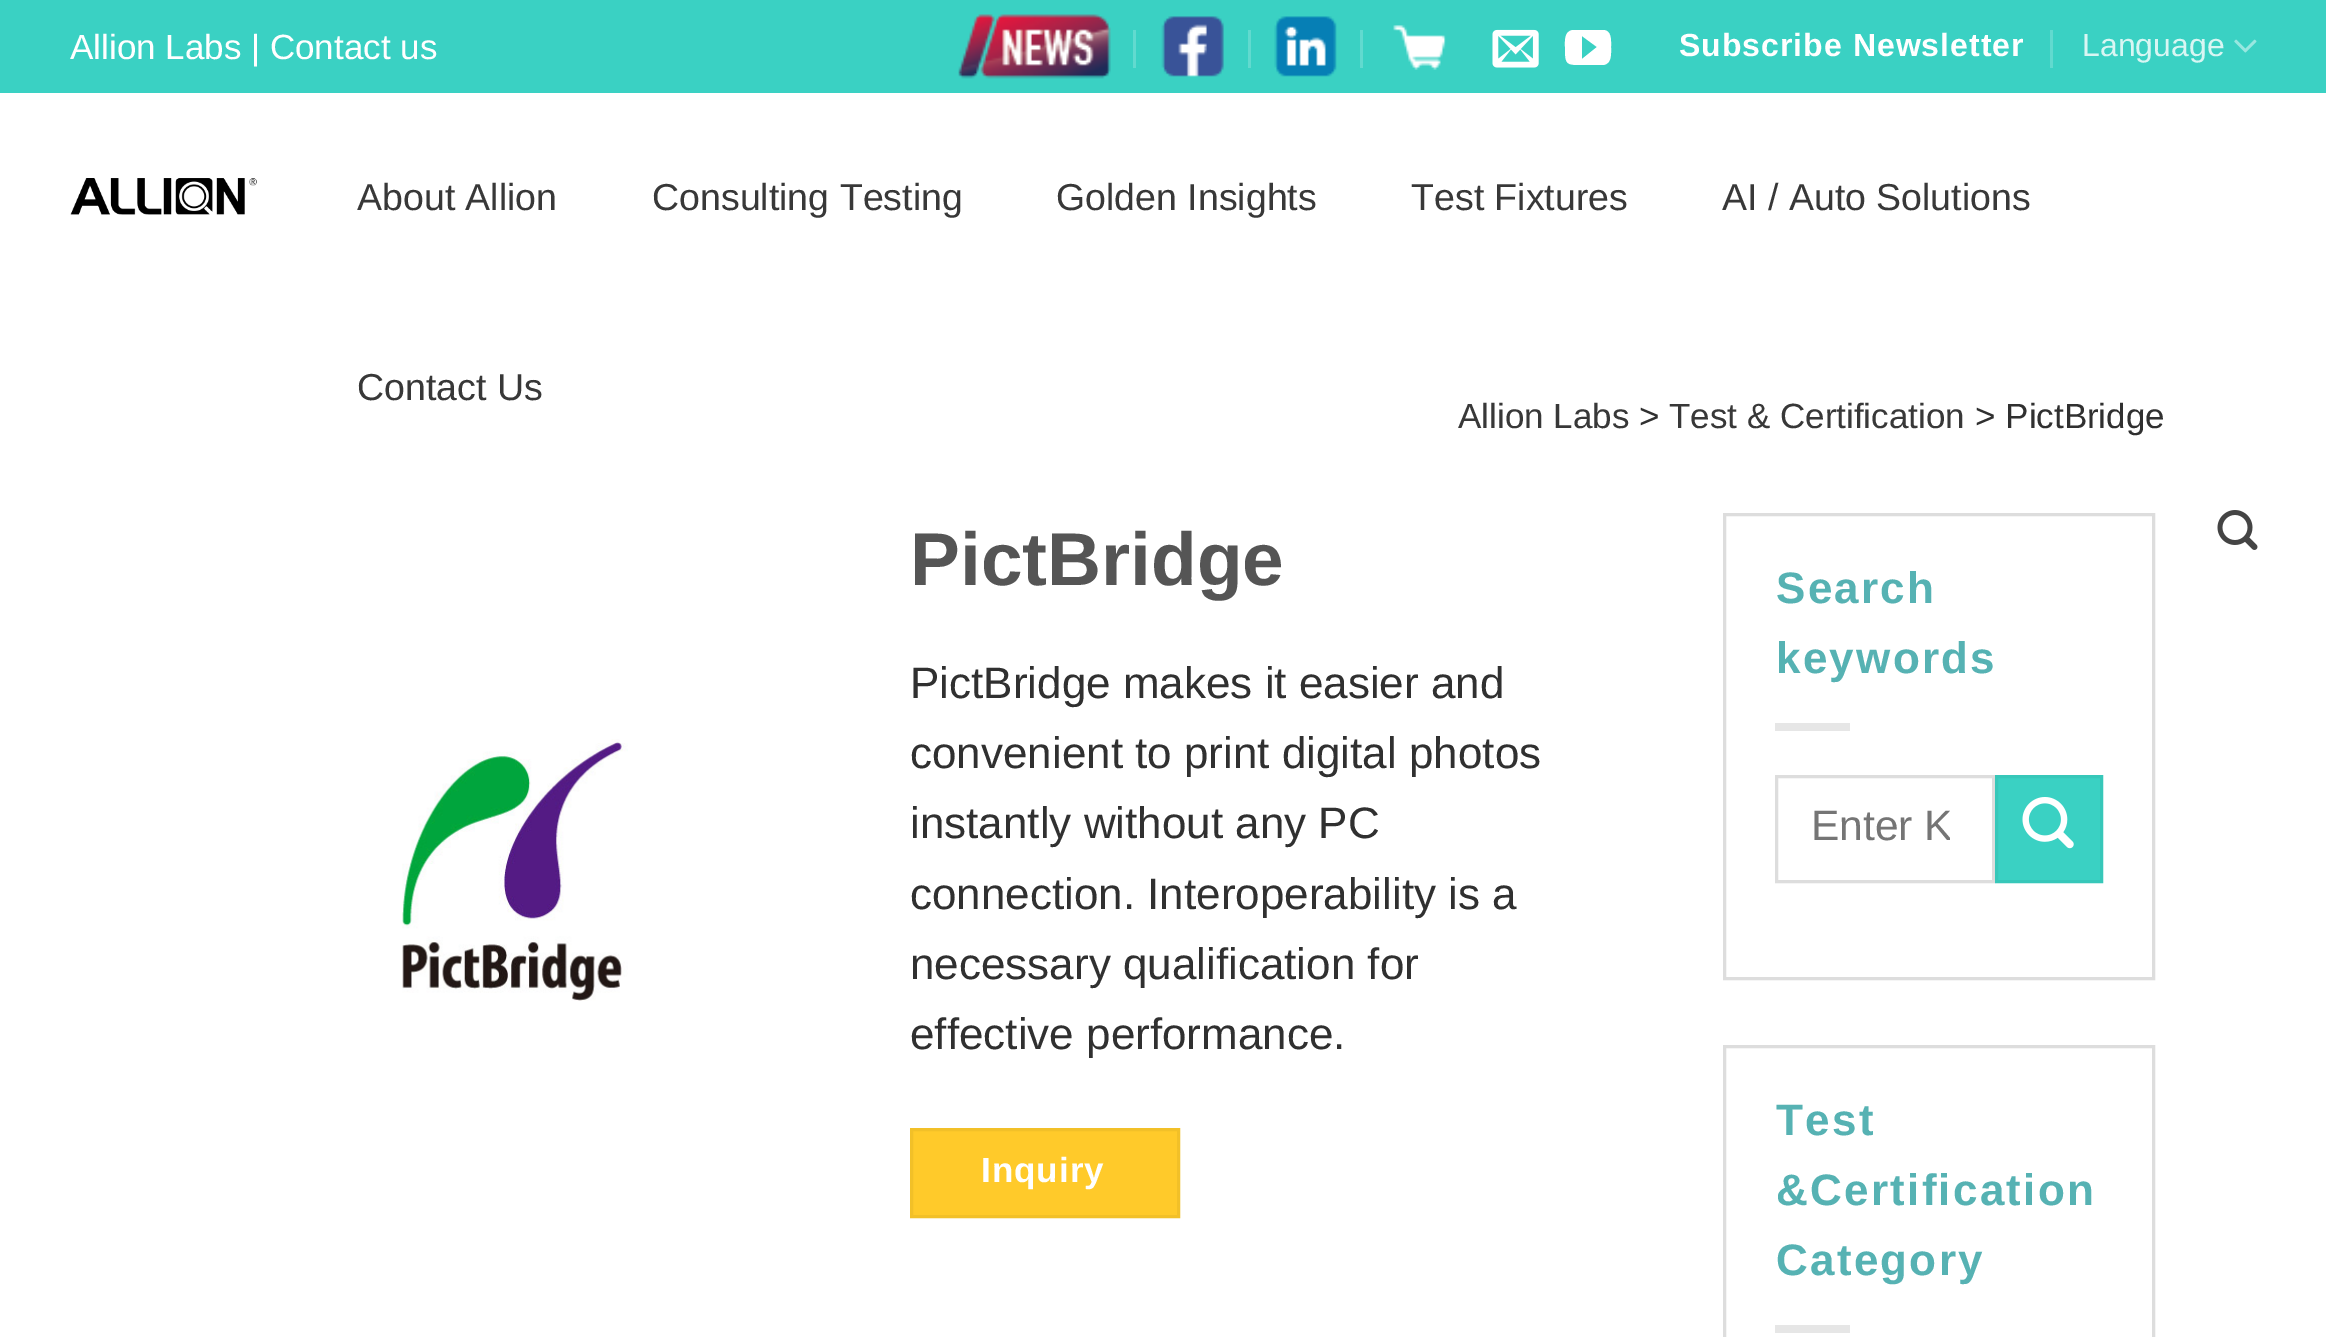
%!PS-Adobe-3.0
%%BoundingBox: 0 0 2326 1337
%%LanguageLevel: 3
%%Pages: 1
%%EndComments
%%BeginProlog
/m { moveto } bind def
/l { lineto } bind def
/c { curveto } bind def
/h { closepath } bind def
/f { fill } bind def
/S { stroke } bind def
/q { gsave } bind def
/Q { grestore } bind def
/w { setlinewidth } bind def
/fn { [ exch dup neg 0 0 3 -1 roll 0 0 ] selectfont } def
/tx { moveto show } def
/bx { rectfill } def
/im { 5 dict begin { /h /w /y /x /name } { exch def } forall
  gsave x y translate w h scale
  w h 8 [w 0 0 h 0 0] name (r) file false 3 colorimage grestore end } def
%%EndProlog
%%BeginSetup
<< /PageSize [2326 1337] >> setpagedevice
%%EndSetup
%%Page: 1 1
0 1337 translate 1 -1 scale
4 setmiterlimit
1 setgray
0 0 2326 1337 bx
0.227 0.82 0.765 setrgbcolor
0 0 2326 93 bx
/LiberationSans-Regular 35 fn
1 setgray
(Allion Labs | Contact us) 70 59 tx
(image0.raw) 958 14 153 65 im
0.38 0.855 0.812 setrgbcolor
1133 30 3 38 bx
(image1.raw) 1161 16 63 61 im
1248 30 3 38 bx
(image2.raw) 1274 16 63 61 im
1360 30 3 38 bx
(image3.raw) 1393 25 53 45 im
(image4.raw) 1492 29 47 39 im
1 setgray
1603 30 m 1573 30 l 1564 31 1565 41 1565 47 c 1565 65 1566 65 1583 65 c 1603 65 l 1612 64 1611 54 1611 47 c 1611 41 1612 30 1603 30 c h 1582 59 m 1582 36 l 1597 47 l h f
/LiberationSans-Bold 32 fn
1679 56 m 1 0 (Subscribe Newsletter) ashow
0.38 0.855 0.812 setrgbcolor
2050 30 3 38 bx
/LiberationSans-Regular 32 fn
0.847 0.965 0.953 setrgbcolor
(Language) 2082 56 tx
(image5.raw) 2234 39 23 14 im
(image6.raw) 70 178 187 37 im
/LiberationSans-Regular 37.5 fn
0.22 setgray
(About Allion) 357 210 tx
(Consulting Testing) 652 210 tx
(Golden Insights) 1056 210 tx
(Test Fixtures) 1411 210 tx
(AI / Auto Solutions) 1722 210 tx
(Contact Us) 357 400 tx
(image7.raw) 2217 510 41 40 im
/LiberationSans-Regular 35 fn
(Allion Labs) 1458 428 tx
0.188 setgray
(>) 1639 428 tx
0.22 setgray
(Test & Certification) 1669 428 tx
0.188 setgray
(> PictBridge) 1975 428 tx
(image8.raw) 402 739 226 262 im
/LiberationSans-Bold 74.75 fn
0.333 setgray
(PictBridge) 910 585 tx
/LiberationSans-Regular 44 fn
0.188 setgray
(PictBridge makes it easier and) 910 698 tx
(convenient to print digital photos) 910 768 tx
(instantly without any PC) 910 838 tx
(connection. Interoperability is a) 910 909 tx
(necessary qualification for) 910 979 tx
(effective performance.) 910 1049 tx
1 0.792 0.165 setrgbcolor
911.5 1129.5 m 1178.5 1129.5 l 1178.5 1216.5 l 911.5 1216.5 l h q f Q
0.949 0.753 0.157 setrgbcolor
3 w
S
/LiberationSans-Bold 35 fn
1 setgray
981 1182 m 1 0 (Inquiry) ashow
0.867 setgray
1724.5 514.5 429 464 rectstroke
/LiberationSans-Bold 44 fn
0.337 0.698 0.702 setrgbcolor
1776 603 m 2.25 0 (Search) ashow
1776 673 m 2.25 0 (keywords) ashow
0.902 setgray
1775 723 75 8 bx
0.867 setgray
1776.5 776.5 217 105 rectstroke
q
1810 803 140 50 rectclip
/LiberationSans-Regular 42.5 fn
0.459 setgray
(Enter K) 1811 840 tx
Q
0.227 0.82 0.765 setrgbcolor
1996.5 776.5 m 2101.5 776.5 l 2101.5 881.5 l 1996.5 881.5 l h q f Q
0.216 0.78 0.725 setrgbcolor
S
(image9.raw) 2022 797 52 52 im
0.867 setgray
1724.5 1046.5 429 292 rectstroke
0.337 0.698 0.702 setrgbcolor
1776 1135 m 2.25 0 (Test) ashow
1776 1205 m 2.25 0 (&Certification) ashow
1776 1275 m 2.25 0 (Category) ashow
0.902 setgray
1775 1325 75 8 bx
showpage
%%EOF
